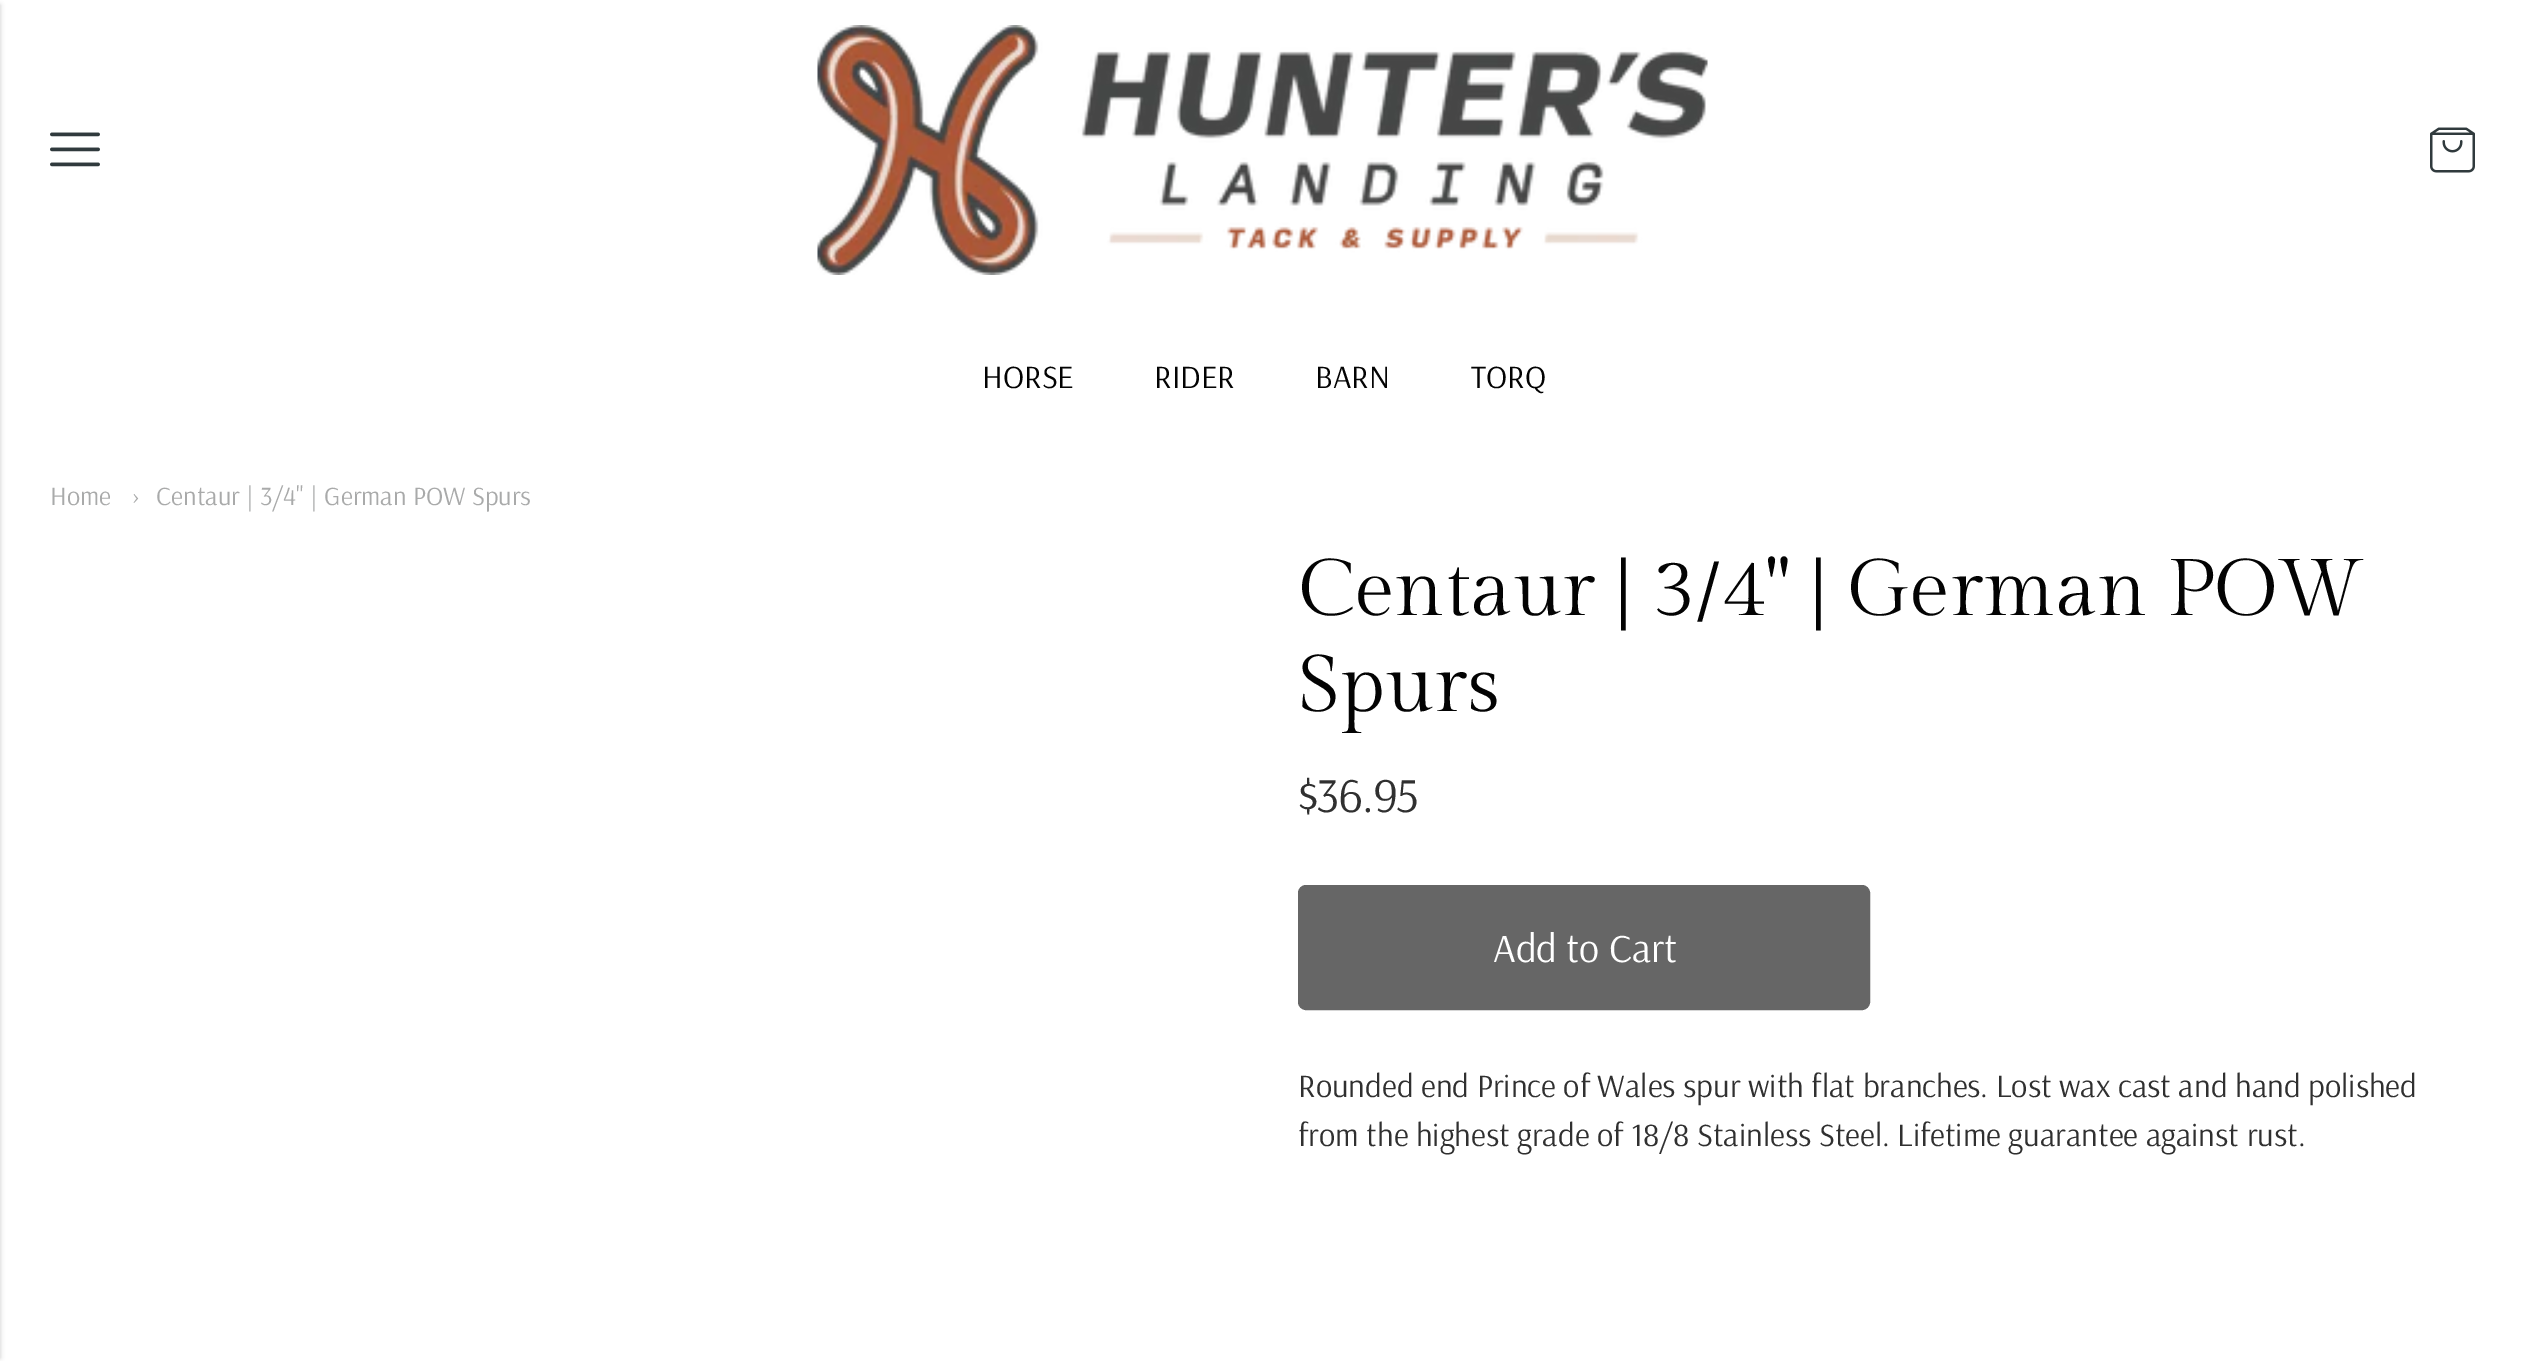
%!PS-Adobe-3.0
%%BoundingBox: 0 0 2526 1361
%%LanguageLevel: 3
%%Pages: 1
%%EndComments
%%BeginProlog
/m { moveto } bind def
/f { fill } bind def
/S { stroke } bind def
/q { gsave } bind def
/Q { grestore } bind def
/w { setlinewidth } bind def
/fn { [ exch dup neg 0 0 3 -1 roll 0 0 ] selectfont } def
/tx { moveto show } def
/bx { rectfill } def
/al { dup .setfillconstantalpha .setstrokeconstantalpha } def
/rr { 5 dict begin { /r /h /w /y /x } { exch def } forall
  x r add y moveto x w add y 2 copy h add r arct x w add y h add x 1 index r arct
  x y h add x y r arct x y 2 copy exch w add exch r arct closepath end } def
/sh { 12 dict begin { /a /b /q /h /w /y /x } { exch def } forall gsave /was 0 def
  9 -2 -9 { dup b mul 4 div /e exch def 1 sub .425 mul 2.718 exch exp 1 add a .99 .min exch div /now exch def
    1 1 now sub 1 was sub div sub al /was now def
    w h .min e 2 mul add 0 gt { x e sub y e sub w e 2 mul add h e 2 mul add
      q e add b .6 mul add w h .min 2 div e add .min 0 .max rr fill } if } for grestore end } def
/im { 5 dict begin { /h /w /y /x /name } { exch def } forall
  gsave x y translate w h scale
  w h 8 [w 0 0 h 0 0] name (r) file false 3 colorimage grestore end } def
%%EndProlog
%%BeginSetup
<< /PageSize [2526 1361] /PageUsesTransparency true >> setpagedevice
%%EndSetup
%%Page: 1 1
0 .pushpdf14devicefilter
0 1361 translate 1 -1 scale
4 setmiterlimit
1 setgray
0 0 2526 1361 bx
0 setgray
-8 5 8 1353 0 2.5 0.2 sh
(image0.raw) 50 132 50 35 im
(image1.raw) 817 25 891 250 im
(image2.raw) 2430 127 45 46 im
/Arsenal-Regular 32.5 fn
0.012 setgray
(HORSE) 982 388 tx
(RIDER) 1154 388 tx
(BARN) 1315 388 tx
(TORQ) 1471 388 tx
/Arsenal-Regular 26.4 fn
0.663 0.667 0.667 setrgbcolor
(Home) 50 505 tx
(›) 132 505 tx
(Centaur | 3/4" | German POW Spurs) 156 505 tx
/GildaDisplay-Regular 80 fn
0.012 setgray
(Centaur | 3/4" | German POW) 1298 615 tx
(Spurs) 1298 711 tx
/Arsenal-Regular 49 fn
0.188 setgray
1298 812 m -1.5 0 ($36.95) ashow
0.4 setgray
1300.5 887.5 567 120 5.5 rr q f Q
5 w
S
/Arsenal-Regular 40 fn
1 setgray
(Add to Cart) 1493 962 tx
/Arsenal-Regular 32.5 fn
0.188 setgray
(Rounded end Prince of Wales spur with flat branches. Lost wax cast and hand polished) 1298 1097 tx
(from the highest grade of 18/8 Stainless Steel. Lifetime guarantee against rust.) 1298 1146 tx
.poppdf14devicefilter showpage
%%EOF
